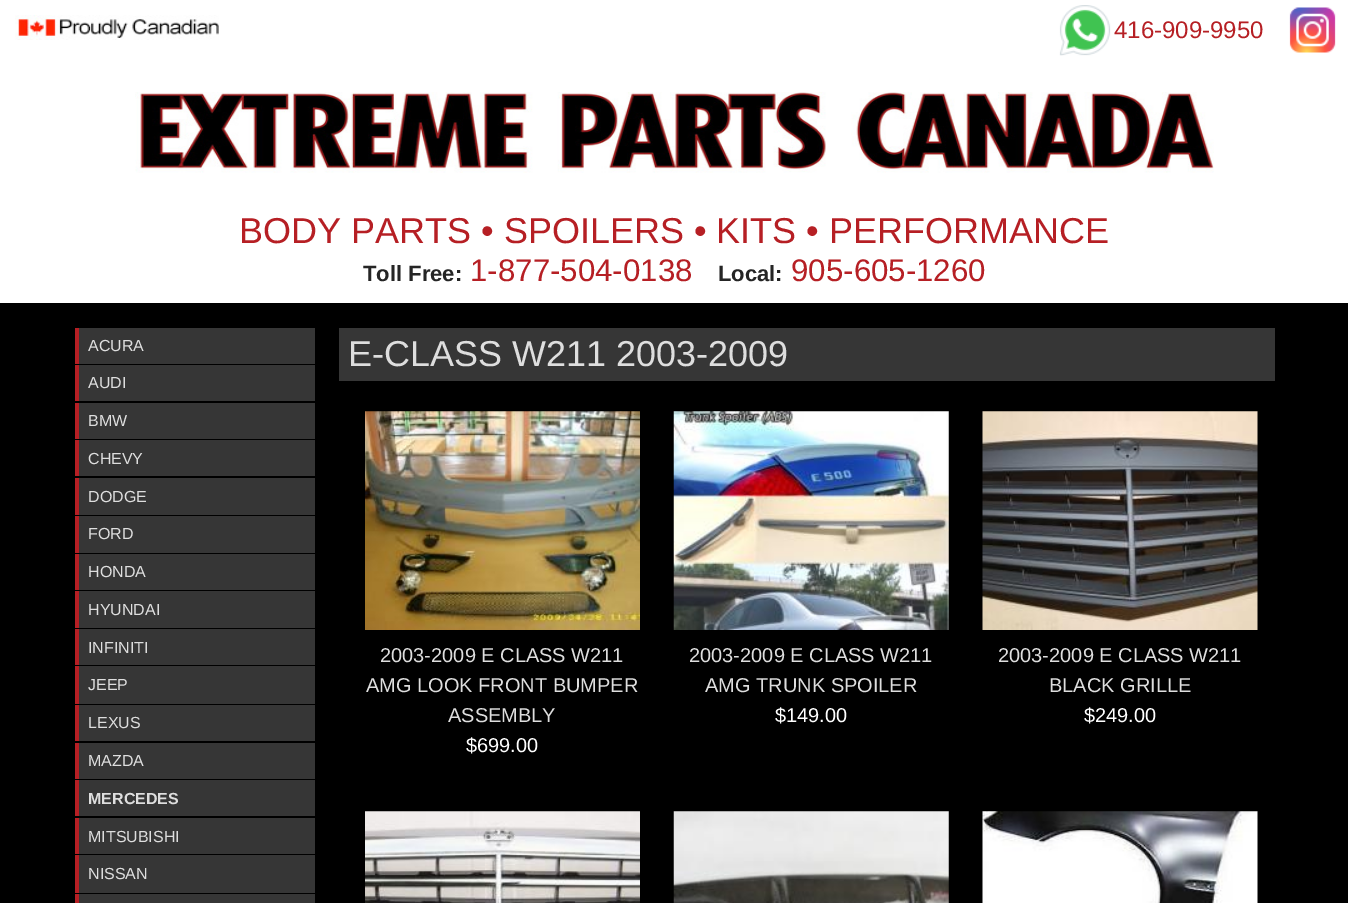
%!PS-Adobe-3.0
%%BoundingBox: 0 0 1348 903
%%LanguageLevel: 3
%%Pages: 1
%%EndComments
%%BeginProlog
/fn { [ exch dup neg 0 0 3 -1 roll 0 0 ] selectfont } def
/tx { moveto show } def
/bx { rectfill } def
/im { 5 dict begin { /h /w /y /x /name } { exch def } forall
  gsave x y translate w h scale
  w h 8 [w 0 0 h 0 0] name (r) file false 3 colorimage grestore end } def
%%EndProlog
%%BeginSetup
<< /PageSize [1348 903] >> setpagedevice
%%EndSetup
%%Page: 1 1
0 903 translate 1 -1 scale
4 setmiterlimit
0 setgray
0 0 1348 903 bx
1 setgray
0 0 1348 303 bx
(image0.raw) 15 15 204 25 im
(image1.raw) 1059 5 52 51 im
/LiberationSans-Regular 24 fn
0.714 0.122 0.141 setrgbcolor
(416-909-9950) 1114 38 tx
(image2.raw) 1289 7 47 46 im
(image3.raw) 135 92 1079 81 im
/LiberationSans-Regular 36 fn
(BODY PARTS • SPOILERS • KITS • PERFORMANCE) 239 243 tx
/LiberationSans-Bold 22 fn
0.145 setgray
(Toll Free:) 363 281 tx
/LiberationSans-Regular 31.25 fn
0.714 0.122 0.141 setrgbcolor
(1-877-504-0138) 470 281 tx
/LiberationSans-Bold 22 fn
0.145 setgray
(Local:) 718 281 tx
/LiberationSans-Regular 31.25 fn
0.714 0.122 0.141 setrgbcolor
(905-605-1260) 791 281 tx
0.212 setgray
79 328 236 36 bx
0.714 0.122 0.141 setrgbcolor
75 328 4 36 bx
/LiberationSans-Regular 16 fn
0.871 setgray
(ACURA) 88 351 tx
0.212 setgray
79 365 236 36 bx
0.714 0.122 0.141 setrgbcolor
75 365 4 36 bx
0.871 setgray
(AUDI) 88 388 tx
0.212 setgray
79 403 236 36 bx
0.714 0.122 0.141 setrgbcolor
75 403 4 36 bx
0.871 setgray
(BMW) 88 426 tx
0.212 setgray
79 440 236 36 bx
0.714 0.122 0.141 setrgbcolor
75 440 4 36 bx
0.871 setgray
(CHEVY) 88 464 tx
0.212 setgray
79 478 236 37 bx
0.714 0.122 0.141 setrgbcolor
75 478 4 37 bx
0.871 setgray
(DODGE) 88 502 tx
0.212 setgray
79 516 236 37 bx
0.714 0.122 0.141 setrgbcolor
75 516 4 37 bx
0.871 setgray
(FORD) 88 539 tx
0.212 setgray
79 554 236 36 bx
0.714 0.122 0.141 setrgbcolor
75 554 4 36 bx
0.871 setgray
(HONDA) 88 577 tx
0.212 setgray
79 591 236 37 bx
0.714 0.122 0.141 setrgbcolor
75 591 4 37 bx
0.871 setgray
(HYUNDAI) 88 615 tx
0.212 setgray
79 629 236 36 bx
0.714 0.122 0.141 setrgbcolor
75 629 4 36 bx
0.871 setgray
(INFINITI) 88 653 tx
0.212 setgray
79 666 236 38 bx
0.714 0.122 0.141 setrgbcolor
75 666 4 38 bx
0.871 setgray
(JEEP) 88 690 tx
0.212 setgray
79 705 236 36 bx
0.714 0.122 0.141 setrgbcolor
75 705 4 36 bx
0.871 setgray
(LEXUS) 88 728 tx
0.212 setgray
79 743 236 36 bx
0.714 0.122 0.141 setrgbcolor
75 743 4 36 bx
0.871 setgray
(MAZDA) 88 766 tx
0.212 setgray
79 780 236 36 bx
0.714 0.122 0.141 setrgbcolor
75 780 4 36 bx
/LiberationSans-Bold 16 fn
0.871 setgray
(MERCEDES) 88 804 tx
0.212 setgray
79 818 236 36 bx
0.714 0.122 0.141 setrgbcolor
75 818 4 36 bx
/LiberationSans-Regular 16 fn
0.871 setgray
(MITSUBISHI) 88 842 tx
0.212 setgray
79 855 236 38 bx
0.714 0.122 0.141 setrgbcolor
75 855 4 38 bx
0.871 setgray
(NISSAN) 88 879 tx
0.212 setgray
79 894 236 9 bx
0.714 0.122 0.141 setrgbcolor
75 894 4 9 bx
0.212 setgray
339 328 936 53 bx
/LiberationSans-Regular 36 fn
0.871 setgray
(E-CLASS W211 2003-2009) 348 366 tx
(image4.raw) 365 411 275 219 im
/LiberationSans-Regular 20 fn
(2003-2009 E CLASS W211) 380 662 tx
(AMG LOOK FRONT BUMPER) 366 692 tx
(ASSEMBLY) 448 722 tx
1 setgray
($699.00) 466 752 tx
(image5.raw) 673 411 276 219 im
0.871 setgray
(2003-2009 E CLASS W211) 689 662 tx
(AMG TRUNK SPOILER) 705 692 tx
1 setgray
($149.00) 775 722 tx
(image6.raw) 982 411 276 219 im
0.871 setgray
(2003-2009 E CLASS W211) 998 662 tx
(BLACK GRILLE) 1049 692 tx
1 setgray
($249.00) 1084 722 tx
(image7.raw) 365 811 275 92 im
(image8.raw) 673 811 276 92 im
(image9.raw) 982 811 276 92 im
showpage
%%EOF
